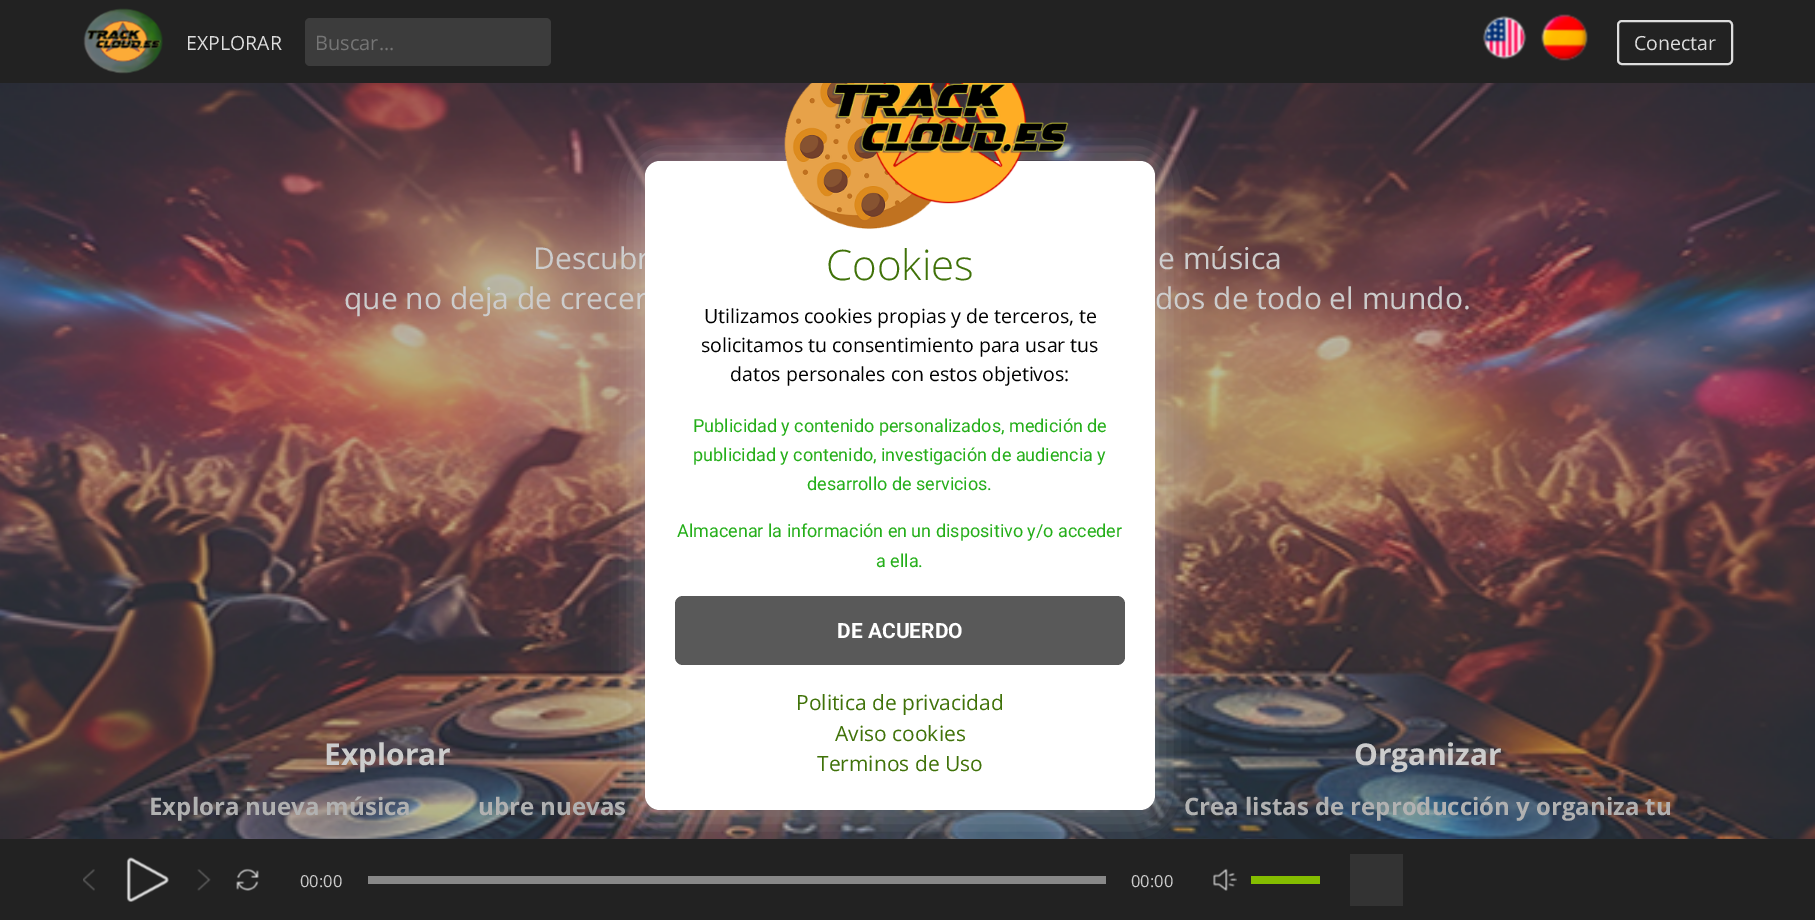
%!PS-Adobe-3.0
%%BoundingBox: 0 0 1815 920
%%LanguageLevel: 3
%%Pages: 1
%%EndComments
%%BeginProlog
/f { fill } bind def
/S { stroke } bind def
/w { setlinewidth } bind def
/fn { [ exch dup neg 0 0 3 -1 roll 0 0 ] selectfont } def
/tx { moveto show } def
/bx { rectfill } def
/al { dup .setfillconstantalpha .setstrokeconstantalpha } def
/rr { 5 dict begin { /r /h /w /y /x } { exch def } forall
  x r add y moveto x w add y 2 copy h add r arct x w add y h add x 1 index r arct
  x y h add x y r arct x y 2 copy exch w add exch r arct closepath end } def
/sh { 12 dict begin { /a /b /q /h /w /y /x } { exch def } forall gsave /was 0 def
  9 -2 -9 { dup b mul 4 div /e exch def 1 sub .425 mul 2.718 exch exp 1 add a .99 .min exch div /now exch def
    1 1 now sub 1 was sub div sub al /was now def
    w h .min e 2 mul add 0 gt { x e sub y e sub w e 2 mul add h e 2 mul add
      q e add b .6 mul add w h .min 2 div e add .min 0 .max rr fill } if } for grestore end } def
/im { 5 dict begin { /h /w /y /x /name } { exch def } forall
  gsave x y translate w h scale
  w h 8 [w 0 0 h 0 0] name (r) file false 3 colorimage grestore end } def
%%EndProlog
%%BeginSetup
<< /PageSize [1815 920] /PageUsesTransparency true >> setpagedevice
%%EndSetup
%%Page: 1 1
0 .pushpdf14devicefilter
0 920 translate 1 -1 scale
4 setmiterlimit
1 setgray
0 0 1815 920 bx
0.133 setgray
0 0 1815 83 bx
(image0.raw) 83 8 80 66 im
/OpenSans-Regular 19.5 fn
0.867 setgray
(EXPLORAR) 186 50 tx
0.235 setgray
305 18 246 48 5 rr f
/OpenSans-Regular 20 fn
0.459 setgray
(Buscar...) 315 50 tx
(image1.raw) 1482 15 45 45 im
(image2.raw) 1541 14 47 47 im
0.867 setgray
2 w
1618 21 114 43 4 rr S
/OpenSans-Regular 19.5 fn
(Conectar) 1634 50 tx
(image3.raw) 0 83 1815 756 im
/OpenSans-Regular 30 fn
0.8 setgray
(Descubr) 533 269 tx
(e música) 1158 269 tx
(que no deja de crecer) 344 309 tx
(dos de todo el mundo.) 1155 309 tx
/OpenSans-Bold 30 fn
(Explorar) 324 765 tx
/OpenSans-Bold 24 fn
0.694 setgray
(Explora nueva música) 149 815 tx
(ubre nuevas) 478 815 tx
/OpenSans-Bold 30 fn
0.8 setgray
(Organizar) 1354 765 tx
/OpenSans-Bold 24 fn
0.694 setgray
(Crea listas de reproducción y organiza tu) 1184 815 tx
0.871 setgray
630 149 540 679 30 15 0.25 sh
1 setgray
645 161 510 649 15 rr f
(image4.raw) 784 83 285 146 im
/OpenSans-Light 42 fn
0.251 0.447 0.035 setrgbcolor
(Cookies) 826 280 tx
/OpenSans-Regular 19.5 fn
0 setgray
(Utilizamos cookies propias y de terceros, te) 704 323 tx
(solicitamos tu consentimiento para usar tus) 701 352 tx
(datos personales con estos objetivos:) 730 381 tx
/Roboto-Regular 18 fn
0.141 0.682 0.098 setrgbcolor
(Publicidad y contenido personalizados, medición de) 693 432 tx
(publicidad y contenido, investigación de audiencia y) 693 461 tx
(desarrollo de servicios.) 807 490 tx
(Almacenar la información en un dispositivo y/o acceder) 677 537 tx
(a ella.) 876 567 tx
0.349 setgray
675 596 450 69 8 rr f
/Roboto-Bold 21 fn
1 setgray
(DE ACUERDO) 837 638 tx
/OpenSans-Regular 21 fn
0.251 0.447 0.035 setrgbcolor
(Politica de privacidad) 796 710 tx
(Aviso cookies) 835 741 tx
(Terminos de Uso) 817 771 tx
0.133 setgray
0 839 1815 81 bx
(image5.raw) 83 869 12 22 im
(image6.raw) 126 857 43 45 im
(image7.raw) 197 869 14 22 im
(image8.raw) 236 868 23 23 im
/OpenSans-Regular 16.5 fn
0.8 setgray
(00:00) 300 887 tx
0.533 setgray
368 876 738 8 bx
0.8 setgray
(00:00) 1131 887 tx
(image9.raw) 1213 868 24 23 im
0.518 0.741 0 setrgbcolor
1251 876 69 8 bx
0.2 setgray
1350 854 53 52 bx
.poppdf14devicefilter showpage
%%EOF
